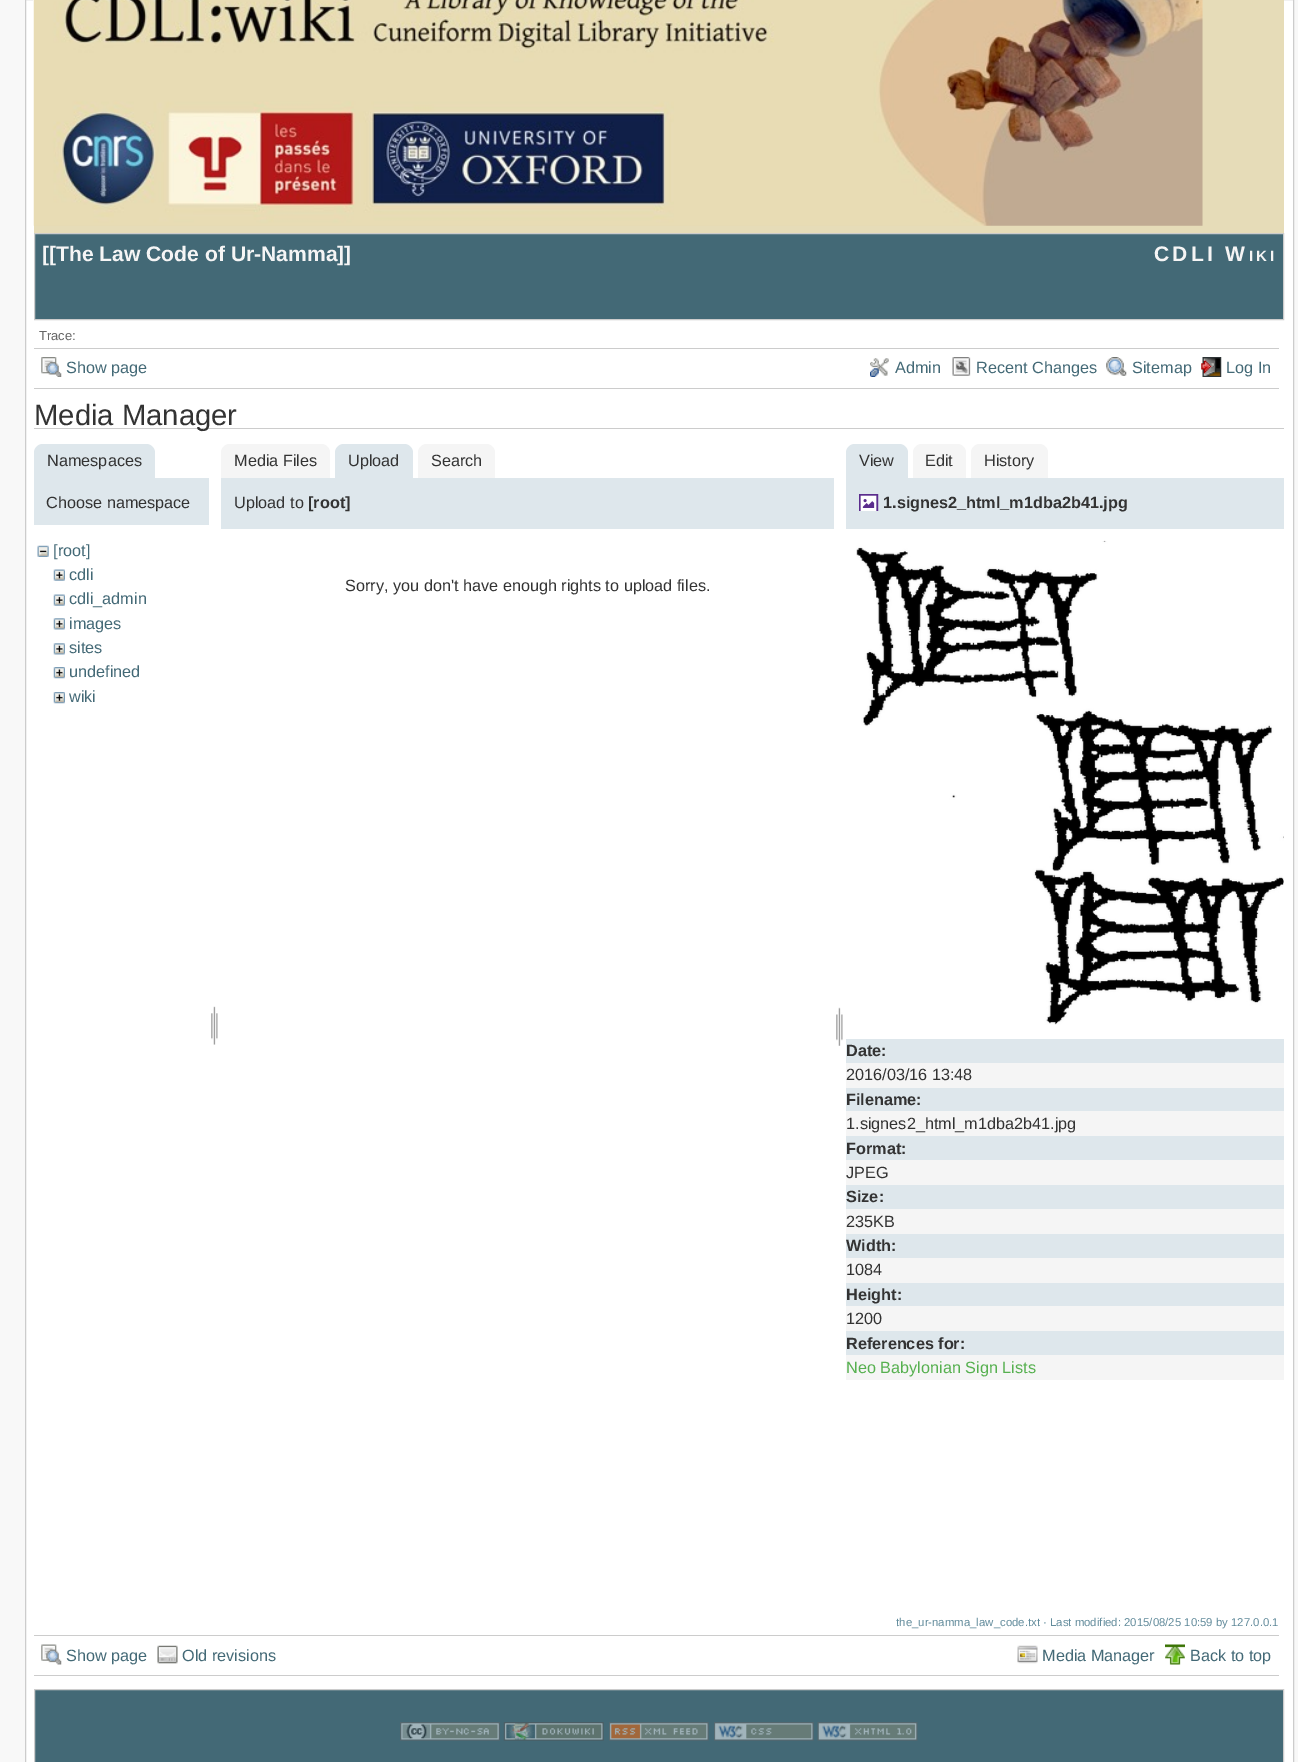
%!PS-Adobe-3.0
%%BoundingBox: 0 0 1298 1762
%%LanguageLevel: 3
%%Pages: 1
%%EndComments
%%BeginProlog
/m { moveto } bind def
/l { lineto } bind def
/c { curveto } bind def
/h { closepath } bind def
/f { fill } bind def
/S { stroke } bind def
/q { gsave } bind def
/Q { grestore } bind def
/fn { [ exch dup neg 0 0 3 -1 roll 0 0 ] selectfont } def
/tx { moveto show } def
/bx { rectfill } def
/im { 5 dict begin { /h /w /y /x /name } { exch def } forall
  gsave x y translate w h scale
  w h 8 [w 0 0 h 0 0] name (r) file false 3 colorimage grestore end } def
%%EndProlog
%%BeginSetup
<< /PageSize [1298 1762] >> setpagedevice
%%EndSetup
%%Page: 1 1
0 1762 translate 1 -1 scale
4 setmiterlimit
0.973 setgray
0 0 1298 1762 bx
1 setgray
25.5 -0.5 m 1293.5 -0.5 l 1293.5 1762.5 l 25.5 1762.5 l h q f Q
0.8 setgray
S
0.902 0.863 0.722 setrgbcolor
34 0 1250 233 bx
(image0.raw) 33 0 1170 226 im
0.263 0.412 0.463 setrgbcolor
34.5 233.5 m 1283.5 233.5 l 1283.5 319.5 l 34.5 319.5 l h q f Q
0.8 setgray
S
/LiberationSans-Bold 21.1 fn
0.961 setgray
([[) 42 261 tx
(The Law Code of Ur-Namma) 56 261 tx
(]]) 337 261 tx
1154 261 m 3.25 0 (CDLI W) ashow
/LiberationSans-Bold 15 fn
1249 261 m 3.25 0 (IKI) ashow
/LiberationSans-Regular 13 fn
0.4 setgray
(Trace:) 39 340 tx
0.8 setgray
34 348 1245 1 bx
34 388 1245 1 bx
(image1.raw) 41 357 21 20 im
/LiberationSans-Regular 16.25 fn
0.263 0.412 0.463 setrgbcolor
(Show page) 66 373 tx
(image2.raw) 870 358 19 19 im
(Admin) 895 373 tx
(image3.raw) 952 357 19 19 im
(Recent Changes) 976 373 tx
(image4.raw) 1106 357 21 19 im
(Sitemap) 1132 373 tx
(image5.raw) 1201 357 21 20 im
(Log In) 1226 373 tx
0.8 setgray
34 428 1250 1 bx
/LiberationSans-Regular 29.25 fn
0.2 setgray
(Media Manager) 34 425 tx
0.871 0.906 0.925 setrgbcolor
43 444 m 146 444 l 151 444 155 448 155 453 c 155 478 l 34 478 l 34 453 l 34 448 38 444 43 444 c h f
/LiberationSans-Regular 16.25 fn
0.2 setgray
(Namespaces) 47 466 tx
0.871 0.906 0.925 setrgbcolor
34 478 175 47 bx
0.2 setgray
(Choose namespace) 46 508 tx
(image6.raw) 37 545 12 12 im
0.263 0.412 0.463 setrgbcolor
([root]) 53 556 tx
(image7.raw) 53 569 12 12 im
(cdli) 69 580 tx
(image7.raw) 53 594 12 12 im
(cdli_admin) 69 604 tx
(image8.raw) 53 618 12 12 im
(images) 69 629 tx
(image9.raw) 53 643 12 12 im
(sites) 69 653 tx
(image10.raw) 53 667 12 12 im
(undefined) 69 677 tx
(image10.raw) 53 692 12 12 im
(wiki) 69 702 tx
(image11.raw) 211 1006 7 39 im
0.961 setgray
230 444 m 321 444 l 326 444 330 448 330 453 c 330 478 l 221 478 l 221 453 l 221 448 225 444 230 444 c h f
0.2 setgray
(Media Files) 234 466 tx
0.871 0.906 0.925 setrgbcolor
344 444 m 404 444 l 409 444 413 448 413 453 c 413 478 l 335 478 l 335 453 l 335 448 339 444 344 444 c h f
0.2 setgray
(Upload) 348 466 tx
0.961 setgray
427 444 m 486 444 l 491 444 495 448 495 453 c 495 478 l 418 478 l 418 453 l 418 448 422 444 427 444 c h f
0.2 setgray
(Search) 431 466 tx
0.871 0.906 0.925 setrgbcolor
221 478 613 51 bx
0.2 setgray
(Upload to) 234 508 tx
/LiberationSans-Bold 16.25 fn
([root]) 308 508 tx
/LiberationSans-Regular 16.25 fn
(Sorry, you don't have enough rights to upload files.) 345 591 tx
(image12.raw) 836 1007 7 39 im
0.871 0.906 0.925 setrgbcolor
855 444 m 899 444 l 904 444 908 448 908 453 c 908 478 l 846 478 l 846 453 l 846 448 850 444 855 444 c h f
0.2 setgray
(View) 859 466 tx
0.961 setgray
922 444 m 957 444 l 962 444 966 448 966 453 c 966 478 l 913 478 l 913 453 l 913 448 917 444 922 444 c h f
0.2 setgray
(Edit) 925 466 tx
0.961 setgray
980 444 m 1039 444 l 1044 444 1048 448 1048 453 c 1048 478 l 971 478 l 971 453 l 971 448 975 444 980 444 c h f
0.2 setgray
(History) 984 466 tx
0.871 0.906 0.925 setrgbcolor
846 478 438 51 bx
(image13.raw) 859 494 20 17 im
/LiberationSans-Bold 16.25 fn
0.2 setgray
(1.signes2_html_m1dba2b41.jpg) 883 508 tx
(image14.raw) 856 540 428 485 im
0.871 0.906 0.925 setrgbcolor
846 1039 438 24 bx
0.2 setgray
(Date:) 846 1056 tx
0.961 setgray
846 1063 438 25 bx
/LiberationSans-Regular 16.25 fn
0.2 setgray
(2016/03/16 13:48) 846 1080 tx
0.871 0.906 0.925 setrgbcolor
846 1088 438 23 bx
/LiberationSans-Bold 16.25 fn
0.2 setgray
(Filename:) 846 1105 tx
0.961 setgray
846 1111 438 25 bx
/LiberationSans-Regular 16.25 fn
0.2 setgray
(1.signes2_html_m1dba2b41.jpg) 846 1129 tx
0.871 0.906 0.925 setrgbcolor
846 1136 438 24 bx
/LiberationSans-Bold 16.25 fn
0.2 setgray
(Format:) 846 1154 tx
0.961 setgray
846 1160 438 25 bx
/LiberationSans-Regular 16.25 fn
0.2 setgray
(JPEG) 846 1178 tx
0.871 0.906 0.925 setrgbcolor
846 1185 438 24 bx
/LiberationSans-Bold 16.25 fn
0.2 setgray
(Size:) 846 1202 tx
0.961 setgray
846 1209 438 25 bx
/LiberationSans-Regular 16.25 fn
0.2 setgray
(235KB) 846 1227 tx
0.871 0.906 0.925 setrgbcolor
846 1234 438 24 bx
/LiberationSans-Bold 16.25 fn
0.2 setgray
(Width:) 846 1251 tx
0.961 setgray
846 1258 438 25 bx
/LiberationSans-Regular 16.25 fn
0.2 setgray
(1084) 846 1275 tx
0.871 0.906 0.925 setrgbcolor
846 1283 438 23 bx
/LiberationSans-Bold 16.25 fn
0.2 setgray
(Height:) 846 1300 tx
0.961 setgray
846 1306 438 25 bx
/LiberationSans-Regular 16.25 fn
0.2 setgray
(1200) 846 1324 tx
0.871 0.906 0.925 setrgbcolor
846 1331 438 24 bx
/LiberationSans-Bold 16.25 fn
0.2 setgray
(References for:) 846 1349 tx
0.961 setgray
846 1355 438 25 bx
/LiberationSans-Regular 16.25 fn
0.337 0.69 0.31 setrgbcolor
(Neo Babylonian Sign Lists) 846 1373 tx
/LiberationSans-Regular 11.4 fn
0.388 0.549 0.612 setrgbcolor
(the_ur-namma_law_code.txt · Last modified: 2015/08/25 10:59 by 127.0.0.1) 896 1626 tx
0.8 setgray
34 1635 1245 1 bx
34 1675 1245 1 bx
(image15.raw) 41 1644 21 21 im
/LiberationSans-Regular 16.25 fn
0.263 0.412 0.463 setrgbcolor
(Show page) 66 1661 tx
(image16.raw) 157 1645 21 19 im
(Old revisions) 182 1661 tx
(image17.raw) 1017 1645 21 19 im
(Media Manager) 1042 1661 tx
(image18.raw) 1165 1644 20 21 im
(Back to top) 1190 1661 tx
34.5 1689.5 m 1283.5 1689.5 l 1283.5 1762.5 l 34.5 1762.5 l h q f Q
0.8 setgray
S
(image19.raw) 400 1722 100 19 im
(image20.raw) 503 1722 101 19 im
(image21.raw) 609 1722 100 19 im
(image22.raw) 714 1722 100 19 im
(image23.raw) 817 1722 101 19 im
showpage
%%EOF
